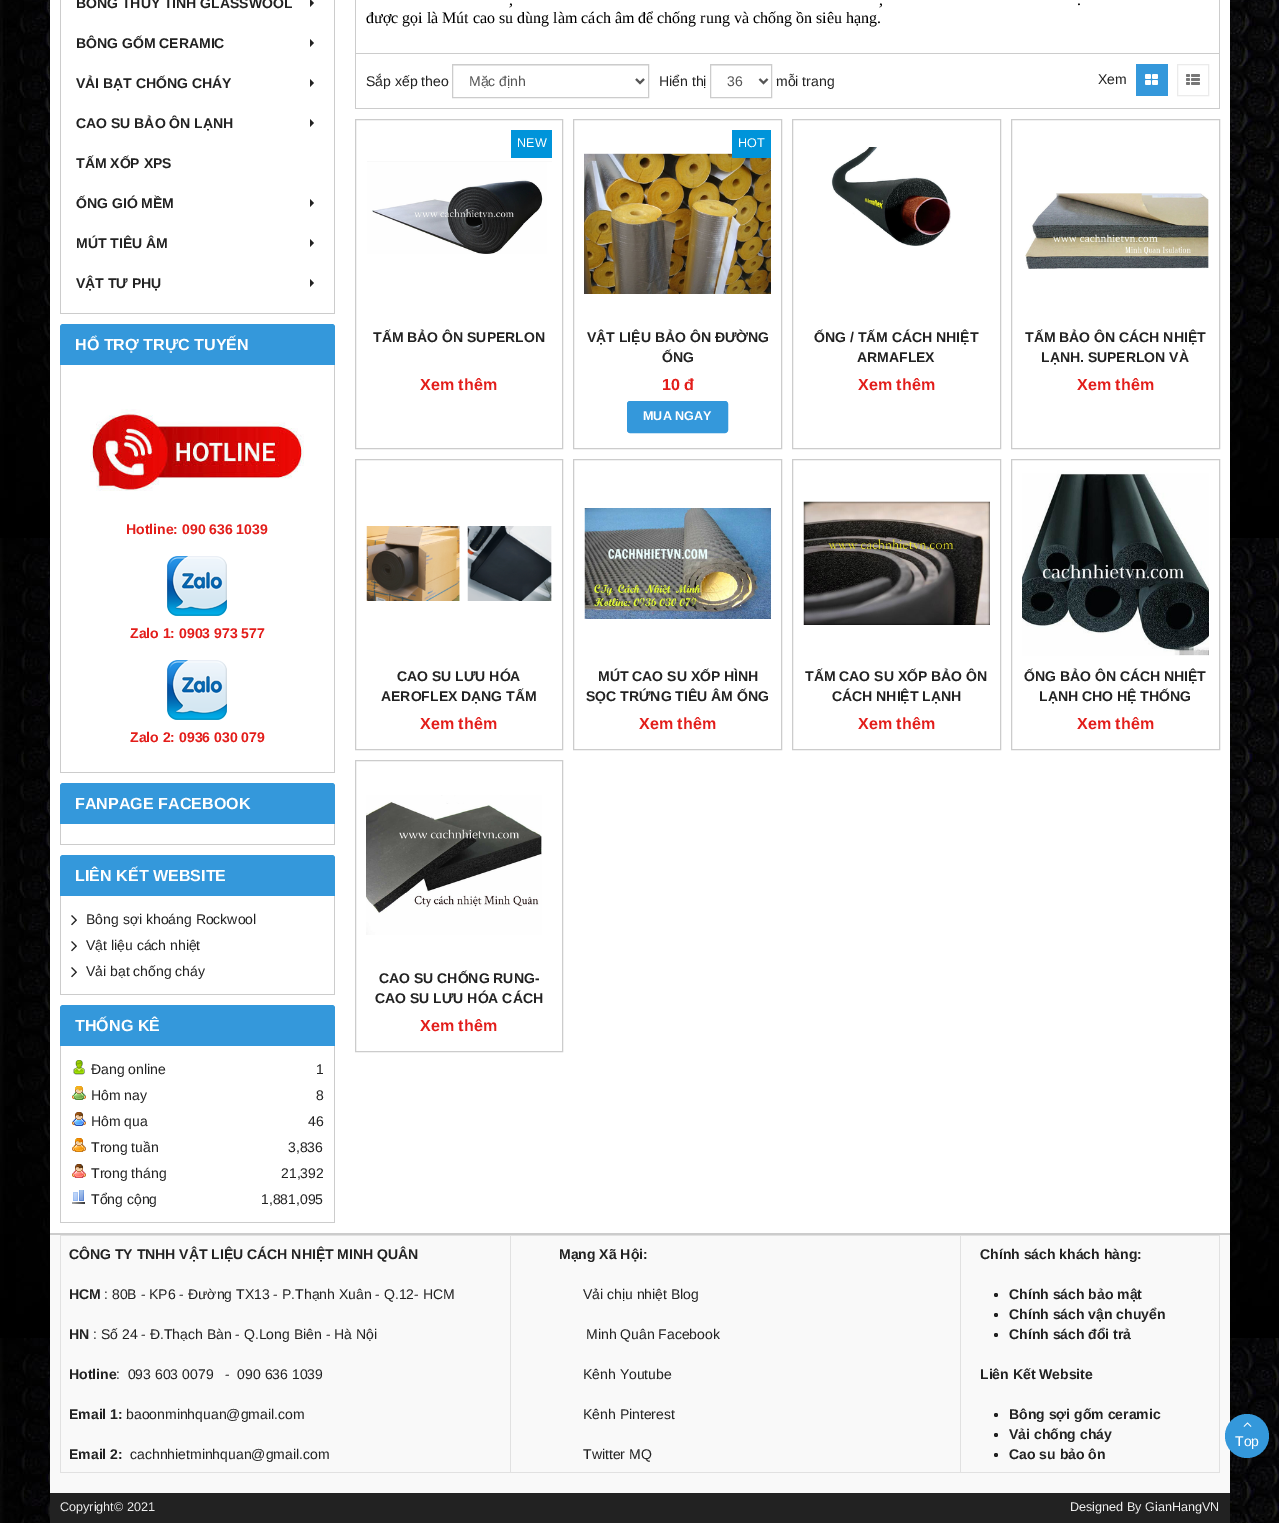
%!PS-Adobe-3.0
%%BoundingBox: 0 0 1279 1523
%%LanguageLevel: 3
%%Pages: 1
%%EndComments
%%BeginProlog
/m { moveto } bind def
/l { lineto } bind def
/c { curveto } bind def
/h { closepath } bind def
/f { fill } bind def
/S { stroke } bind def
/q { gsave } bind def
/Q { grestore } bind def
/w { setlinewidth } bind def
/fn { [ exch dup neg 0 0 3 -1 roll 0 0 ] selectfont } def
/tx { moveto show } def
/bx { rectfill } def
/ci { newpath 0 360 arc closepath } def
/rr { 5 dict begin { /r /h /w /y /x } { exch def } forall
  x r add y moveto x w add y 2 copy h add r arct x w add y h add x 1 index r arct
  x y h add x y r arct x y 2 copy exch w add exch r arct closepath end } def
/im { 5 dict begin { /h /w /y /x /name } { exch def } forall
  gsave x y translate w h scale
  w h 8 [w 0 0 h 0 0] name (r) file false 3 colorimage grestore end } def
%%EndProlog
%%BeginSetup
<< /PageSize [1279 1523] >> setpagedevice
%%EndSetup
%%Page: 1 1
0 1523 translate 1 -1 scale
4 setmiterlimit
1 setgray
0 0 1279 1523 bx
(image0.raw) 0 0 1279 1523 im
50 0 1180 1233 bx
0.8 setgray
334 0 1 314 bx
60 313 275 1 bx
60 0 1 314 bx
/LiberationSans-Bold 14 fn
0.133 setgray
(BÔNG THỦY TINH GLASSWOOL) 76 8 tx
310 7 m 310 -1 l 314 3 l h f
(BÔNG GỐM CERAMIC) 76 48 tx
310 47 m 310 39 l 314 43 l h f
(VẢI BẠT CHỐNG CHÁY) 76 88 tx
310 87 m 310 79 l 314 83 l h f
(CAO SU BẢO ÔN LẠNH) 76 128 tx
310 127 m 310 119 l 314 123 l h f
(TẤM XỐP XPS) 76 168 tx
(ỐNG GIÓ MỀM) 76 208 tx
310 207 m 310 199 l 314 203 l h f
(MÚT TIÊU ÂM) 76 248 tx
310 247 m 310 239 l 314 243 l h f
(VẬT TƯ PHỤ) 76 288 tx
310 287 m 310 279 l 314 283 l h f
0.204 0.596 0.859 setrgbcolor
63 324 m 332 324 l 333.5 324 335 325.5 335 327 c 335 365 l 60 365 l 60 327 l 60 325.5 61.5 324 63 324 c h f
/LiberationSans-Bold 16.1 fn
1 setgray
(HỔ TRỢ TRỰC TUYẾN) 75 350 tx
0.8 setgray
334 365 1 408 bx
60 772 275 1 bx
60 365 1 408 bx
(image1.raw) 90 409 214 82 im
/LiberationSans-Bold 14 fn
0.89 0.114 0.102 setrgbcolor
(Hotline: 090 636 1039) 126 534 tx
(image2.raw) 167 556 60 60 im
(Zalo 1: 0903 973 577) 130 638 tx
(image2.raw) 167 660 60 60 im
(Zalo 2: 0936 030 079) 130 742 tx
0.204 0.596 0.859 setrgbcolor
63 783 m 332 783 l 333.5 783 335 784.5 335 786 c 335 824 l 60 824 l 60 786 l 60 784.5 61.5 783 63 783 c h f
/LiberationSans-Bold 16.1 fn
1 setgray
(FANPAGE FACEBOOK) 75 809 tx
0.8 setgray
334 824 1 21 bx
60 844 275 1 bx
60 824 1 21 bx
0.204 0.596 0.859 setrgbcolor
63 855 m 332 855 l 333.5 855 335 856.5 335 858 c 335 896 l 60 896 l 60 858 l 60 856.5 61.5 855 63 855 c h f
1 setgray
(LIÊN KẾT WEBSITE) 75 881 tx
0.8 setgray
334 896 1 99 bx
60 994 275 1 bx
60 896 1 99 bx
(image3.raw) 71 915 6 11 im
/LiberationSans-Regular 14 fn
0.133 setgray
(Bông sợi khoáng Rockwool) 86 924 tx
(image3.raw) 71 941 6 11 im
(Vật liệu cách nhiệt) 86 950 tx
(image3.raw) 71 967 6 11 im
(Vải bạt chống cháy) 86 976 tx
0.204 0.596 0.859 setrgbcolor
63 1005 m 332 1005 l 333.5 1005 335 1006.5 335 1008 c 335 1046 l 60 1046 l 60 1008 l 60 1006.5 61.5 1005 63 1005 c h f
/LiberationSans-Bold 16.1 fn
1 setgray
(THỐNG KÊ) 75 1031 tx
0.8 setgray
334 1046 1 177 bx
60 1222 275 1 bx
60 1046 1 177 bx
(image4.raw) 73 1060 12 15 im
/LiberationSans-Regular 14 fn
0.133 setgray
(Đang online) 91 1074 tx
(1) 316 1074 tx
(image5.raw) 72 1086 14 14 im
(Hôm nay) 91 1100 tx
(8) 316 1100 tx
(image6.raw) 72 1112 14 14 im
(Hôm qua) 91 1126 tx
(46) 308 1126 tx
(image7.raw) 72 1138 14 14 im
(Trong tuần) 91 1152 tx
(3,836) 288 1152 tx
(image8.raw) 72 1164 14 14 im
(Trong tháng) 91 1178 tx
(21,392) 281 1178 tx
(image9.raw) 72 1190 13 14 im
(Tổng cộng) 91 1204 tx
(1,881,095) 261 1204 tx
0.8 setgray
1219 0 1 109 bx
355 53 865 1 bx
355 0 1 54 bx
/LiberationSerif-Regular 16 fn
0 setgray
(,) 509 5 tx
(,) 879 5 tx
(.) 1077 5 tx
(được gọi là Mút cao su dùng làm cách âm để chống rung và chống ồn siêu hạng.) 366 23 tx
0.8 setgray
355 108 865 1 bx
355 54 1 55 bx
/LiberationSans-Regular 14 fn
0.133 setgray
(Sắp xếp theo) 366 86 tx
0.925 setgray
453 65 195 1 bx
0.8 setgray
452.5 64.5 196 33 rectstroke
0.333 setgray
2 w
636 79 m 640 83 l 644 79 l S
(Mặc định) 469 86 tx
0.133 setgray
(Hiển thị) 659 86 tx
0.925 setgray
711 65 60 1 bx
0.8 setgray
1 w
710.5 64.5 61 33 rectstroke
0.333 setgray
2 w
759.5 79 m 763.5 83 l 767.5 79 l S
(36) 727 86 tx
0.133 setgray
(mỗi trang) 776 86 tx
(Xem) 1098 84 tx
0.204 0.596 0.859 setrgbcolor
1136 64 32 32 bx
(image10.raw) 1145 74 13 11 im
0.922 setgray
1 w
1177.5 64.5 31 31 rectstroke
(image11.raw) 1186 74 14 11 im
0.8 setgray
355.5 119.5 207 329 rectstroke
0 0.58 0.855 setrgbcolor
511 130 41 28 bx
/LiberationSans-Regular 12.6 fn
1 setgray
(NEW) 517 147 tx
(image12.raw) 367 161 185 93 im
/LiberationSans-Bold 14 fn
0.133 setgray
(TẤM BẢO ÔN SUPERLON) 373 342 tx
/LiberationSans-Bold 16.1 fn
0.89 0.114 0.102 setrgbcolor
(Xem thêm) 420 390 tx
0.8 setgray
573.5 119.5 208 329 rectstroke
(image13.raw) 584 153 187 141 im
0 0.58 0.855 setrgbcolor
732 130 39 28 bx
/LiberationSans-Regular 12.6 fn
1 setgray
(HOT) 738 147 tx
/LiberationSans-Bold 14 fn
0.133 setgray
(VẬT LIỆU BẢO ÔN ĐƯỜNG) 587 342 tx
(ỐNG) 662 362 tx
/LiberationSans-Bold 16.1 fn
0.89 0.114 0.102 setrgbcolor
(10 đ) 662 390 tx
0.204 0.596 0.859 setrgbcolor
627.5 401.5 100 31 2.5 rr q f Q
S
/LiberationSans-Bold 12.6 fn
1 setgray
(MUA NGAY) 643 420 tx
0.8 setgray
792.5 119.5 208 329 rectstroke
(image14.raw) 831 147 120 99 im
/LiberationSans-Bold 14 fn
0.133 setgray
(ỐNG / TẤM CÁCH NHIỆT) 814 342 tx
(ARMAFLEX) 857 362 tx
/LiberationSans-Bold 16.1 fn
0.89 0.114 0.102 setrgbcolor
(Xem thêm) 858 390 tx
0.8 setgray
1011.5 119.5 208 329 rectstroke
(image15.raw) 1025 193 184 76 im
/LiberationSans-Bold 14 fn
0.133 setgray
(TẤM BẢO ÔN CÁCH NHIỆT) 1025 342 tx
(LẠNH. SUPERLON VÀ) 1041 362 tx
/LiberationSans-Bold 16.1 fn
0.89 0.114 0.102 setrgbcolor
(Xem thêm) 1077 390 tx
0.8 setgray
355.5 459.5 207 290 rectstroke
(image16.raw) 366 526 186 75 im
/LiberationSans-Bold 14 fn
0.133 setgray
(CAO SU LƯU HÓA) 397 681 tx
(AEROFLEX DẠNG TẤM) 381 701 tx
/LiberationSans-Bold 16.1 fn
0.89 0.114 0.102 setrgbcolor
(Xem thêm) 420 729 tx
0.8 setgray
573.5 459.5 208 290 rectstroke
(image17.raw) 584 508 187 111 im
/LiberationSans-Bold 14 fn
0.133 setgray
(MÚT CAO SU XỐP HÌNH) 598 681 tx
(SỌC TRỨNG TIÊU ÂM ỐNG) 586 701 tx
/LiberationSans-Bold 16.1 fn
0.89 0.114 0.102 setrgbcolor
(Xem thêm) 639 729 tx
0.8 setgray
792.5 459.5 208 290 rectstroke
(image18.raw) 803 501 187 124 im
/LiberationSans-Bold 14 fn
0.133 setgray
(TẤM CAO SU XỐP BẢO ÔN) 805 681 tx
(CÁCH NHIỆT LẠNH) 832 701 tx
/LiberationSans-Bold 16.1 fn
0.89 0.114 0.102 setrgbcolor
(Xem thêm) 858 729 tx
0.8 setgray
1011.5 459.5 208 290 rectstroke
(image19.raw) 1022 470 187 186 im
/LiberationSans-Bold 14 fn
0.133 setgray
(ỐNG BẢO ÔN CÁCH NHIỆT) 1024 681 tx
(LẠNH CHO HỆ THỐNG) 1039 701 tx
/LiberationSans-Bold 16.1 fn
0.89 0.114 0.102 setrgbcolor
(Xem thêm) 1077 729 tx
0.8 setgray
355.5 760.5 207 291 rectstroke
(image20.raw) 366 795 176 140 im
/LiberationSans-Bold 14 fn
0.133 setgray
(CAO SU CHỐNG RUNG-) 379 983 tx
(CAO SU LƯU HÓA CÁCH) 375 1003 tx
/LiberationSans-Bold 16.1 fn
0.89 0.114 0.102 setrgbcolor
(Xem thêm) 420 1031 tx
0.976 setgray
50 1235 1180 258 bx
0.8 setgray
50 1233 1180 2 bx
0.882 setgray
60 1235 1160 1 bx
1219 1235 1 238 bx
60 1472 1160 1 bx
60 1235 1 238 bx
/LiberationSans-Bold 14 fn
0.133 setgray
(CÔNG TY TNHH VẬT LIỆU CÁCH NHIỆT MINH QUÂN) 69 1259 tx
(HCM) 69 1299 tx
/LiberationSans-Regular 14 fn
(: 80B - KP6 - Đường TX13 - P.Thạnh Xuân - Q.12- HCM) 104 1299 tx
/LiberationSans-Bold 14 fn
(HN) 69 1339 tx
/LiberationSans-Regular 14 fn
(: Số 24 - Đ.Thạch Bàn - Q.Long Biên - Hà Nội) 93 1339 tx
/LiberationSans-Bold 14 fn
(Hotline) 69 1379 tx
/LiberationSans-Regular 14 fn
(:  093 603 0079   -  090 636 1039) 116 1379 tx
/LiberationSans-Bold 14 fn
(Email 1:) 69 1419 tx
/LiberationSans-Regular 14 fn
(baoonminhquan@gmail.com) 126 1419 tx
/LiberationSans-Bold 14 fn
(Email 2:) 69 1459 tx
/LiberationSans-Regular 14 fn
(cachnhietminhquan@gmail.com) 130 1459 tx
0.882 setgray
510 1235 1 238 bx
/LiberationSans-Bold 14 fn
0.133 setgray
(Mạng Xã Hội:) 559 1259 tx
/LiberationSans-Regular 14 fn
(Vải chịu nhiệt Blog) 583 1299 tx
(Minh Quân Facebook) 586 1339 tx
(Kênh Youtube) 583 1379 tx
(Kênh Pinterest) 583 1419 tx
(Twitter MQ) 583 1459 tx
0.882 setgray
960 1235 1 238 bx
/LiberationSans-Bold 14 fn
0.133 setgray
(Chính sách khách hàng:) 980 1259 tx
996 1295 2 ci f
(Chính sách bảo mật) 1009 1299 tx
996 1315 2 ci f
(Chính sách vận chuyển) 1009 1319 tx
996 1335 2 ci f
(Chính sách đổi trả) 1009 1339 tx
(Liên Kết Website) 980 1379 tx
996 1415 2 ci f
(Bông sợi gốm ceramic) 1009 1419 tx
996 1435 2 ci f
(Vải chống cháy) 1009 1439 tx
996 1455 2 ci f
(Cao su bảo ôn) 1009 1459 tx
50 1493 1180 30 bx
/LiberationSans-Regular 12.6 fn
0.933 setgray
(Copyright© 2021) 60 1511 tx
(Designed By GianHangVN) 1070 1511 tx
0.204 0.596 0.859 setrgbcolor
1247 1436 22 ci f
(image21.raw) 1243 1422 9 5 im
/LiberationSans-Regular 14 fn
1 setgray
(Top) 1235 1446 tx
showpage
%%EOF
